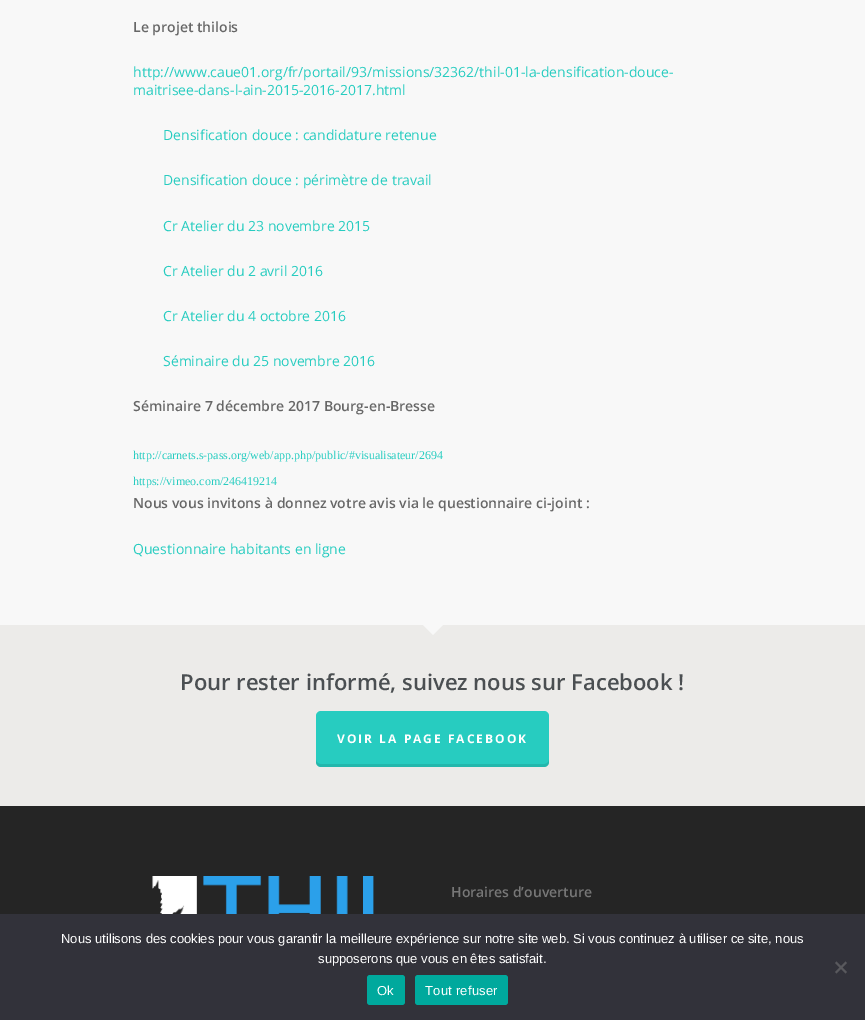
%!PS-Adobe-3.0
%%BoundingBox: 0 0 865 1020
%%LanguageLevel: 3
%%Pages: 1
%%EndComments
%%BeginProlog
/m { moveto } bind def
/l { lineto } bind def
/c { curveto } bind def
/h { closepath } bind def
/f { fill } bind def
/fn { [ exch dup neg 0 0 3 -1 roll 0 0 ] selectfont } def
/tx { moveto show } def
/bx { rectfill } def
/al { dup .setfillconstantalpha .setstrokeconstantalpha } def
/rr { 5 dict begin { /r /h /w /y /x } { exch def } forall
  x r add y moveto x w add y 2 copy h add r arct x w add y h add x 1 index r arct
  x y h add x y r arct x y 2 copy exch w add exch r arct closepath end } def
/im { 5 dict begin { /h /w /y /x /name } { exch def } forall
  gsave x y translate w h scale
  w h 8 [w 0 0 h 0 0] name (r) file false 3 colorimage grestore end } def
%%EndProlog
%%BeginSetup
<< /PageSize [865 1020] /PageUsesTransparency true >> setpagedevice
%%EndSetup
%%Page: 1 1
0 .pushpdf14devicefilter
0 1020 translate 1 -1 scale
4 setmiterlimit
0.145 setgray
0 0 865 1020 bx
0.973 setgray
0 0 865 625 bx
/OpenSans-SemiBold 14 fn
0.404 setgray
(Le projet thilois) 133 32 tx
/OpenSans-Regular 14 fn
0.153 0.8 0.753 setrgbcolor
(http://www.caue01.org/fr/portail/93/missions/32362/thil-01-la-densification-douce-) 133 77 tx
(maitrisee-dans-l-ain-2015-2016-2017.html) 133 95 tx
(Densification douce : candidature retenue) 163 140 tx
(Densification douce : périmètre de travail) 163 185 tx
(Cr Atelier du 23 novembre 2015) 163 231 tx
(Cr Atelier du 2 avril 2016) 163 276 tx
(Cr Atelier du 4 octobre 2016) 163 321 tx
(Séminaire du 25 novembre 2016) 163 366 tx
/OpenSans-SemiBold 14 fn
0.404 setgray
(Séminaire 7 décembre 2017 Bourg-en-Bresse) 133 411 tx
/LiberationSerif-Regular 12 fn
0.153 0.8 0.753 setrgbcolor
(http://carnets.s-pass.org/web/app.php/public/#visualisateur/2694) 133 459 tx
(https://vimeo.com/246419214) 133 485 tx
/OpenSans-SemiBold 14 fn
0.404 setgray
(Nous vous invitons à donnez votre avis via le questionnaire ci-joint :) 133 508 tx
/OpenSans-Regular 14 fn
0.153 0.8 0.753 setrgbcolor
(Questionnaire habitants en ligne) 133 554 tx
0.925 0.922 0.914 setrgbcolor
0 625 865 181 bx
0.973 setgray
423 625 m 443 625 l 433 635 l h f
/OpenSans-SemiBold 22 fn
0.294 0.31 0.322 setrgbcolor
(Pour rester informé, suivez nous sur Facebook !) 180 690 tx
0.153 0.8 0.753 setrgbcolor
316 711 233 56 5 rr f
0.1 al
0 setgray
316 759 m 316 762 l 316 765 318 767 321 767 c 544 767 l 547 767 549 765 549 762 c 549 759 l 549 762 547 764 544 764 c 321 764 l 318 764 316 762 316 759 c h f
/OpenSans-Bold 12 fn
1 al
1 setgray
337 743 m 2 0 (VOIR LA PAGE FACEBOOK) ashow
(image0.raw) 152 876 222 38 im
/OpenSans-SemiBold 14 fn
0.467 setgray
(Horaires d’ouverture) 451 897 tx
0.196 0.196 0.227 setrgbcolor
0 914 865 106 bx
/LiberationSans-Regular 13 fn
1 setgray
(Nous utilisons des cookies pour vous garantir la meilleure expérience sur notre site web. Si vous continuez à utiliser ce site, nous) 61 943 tx
(supposerons que vous en êtes satisfait.) 318 963 tx
0.349 0.349 0.365 setrgbcolor
845.5 961.5 m 847 963 l 836.5 973.5 l 835 972 l h f
835 963 m 836.5 961.5 l 847 972 l 845.5 973.5 l h f
0 0.663 0.616 setrgbcolor
367 975 38 30 3 rr f
1 setgray
377 995 m 0.25 0 (Ok) ashow
0 0.663 0.616 setrgbcolor
415 975 93 30 3 rr f
1 setgray
425 995 m 0.25 0 (Tout refuser) ashow
.poppdf14devicefilter showpage
%%EOF
